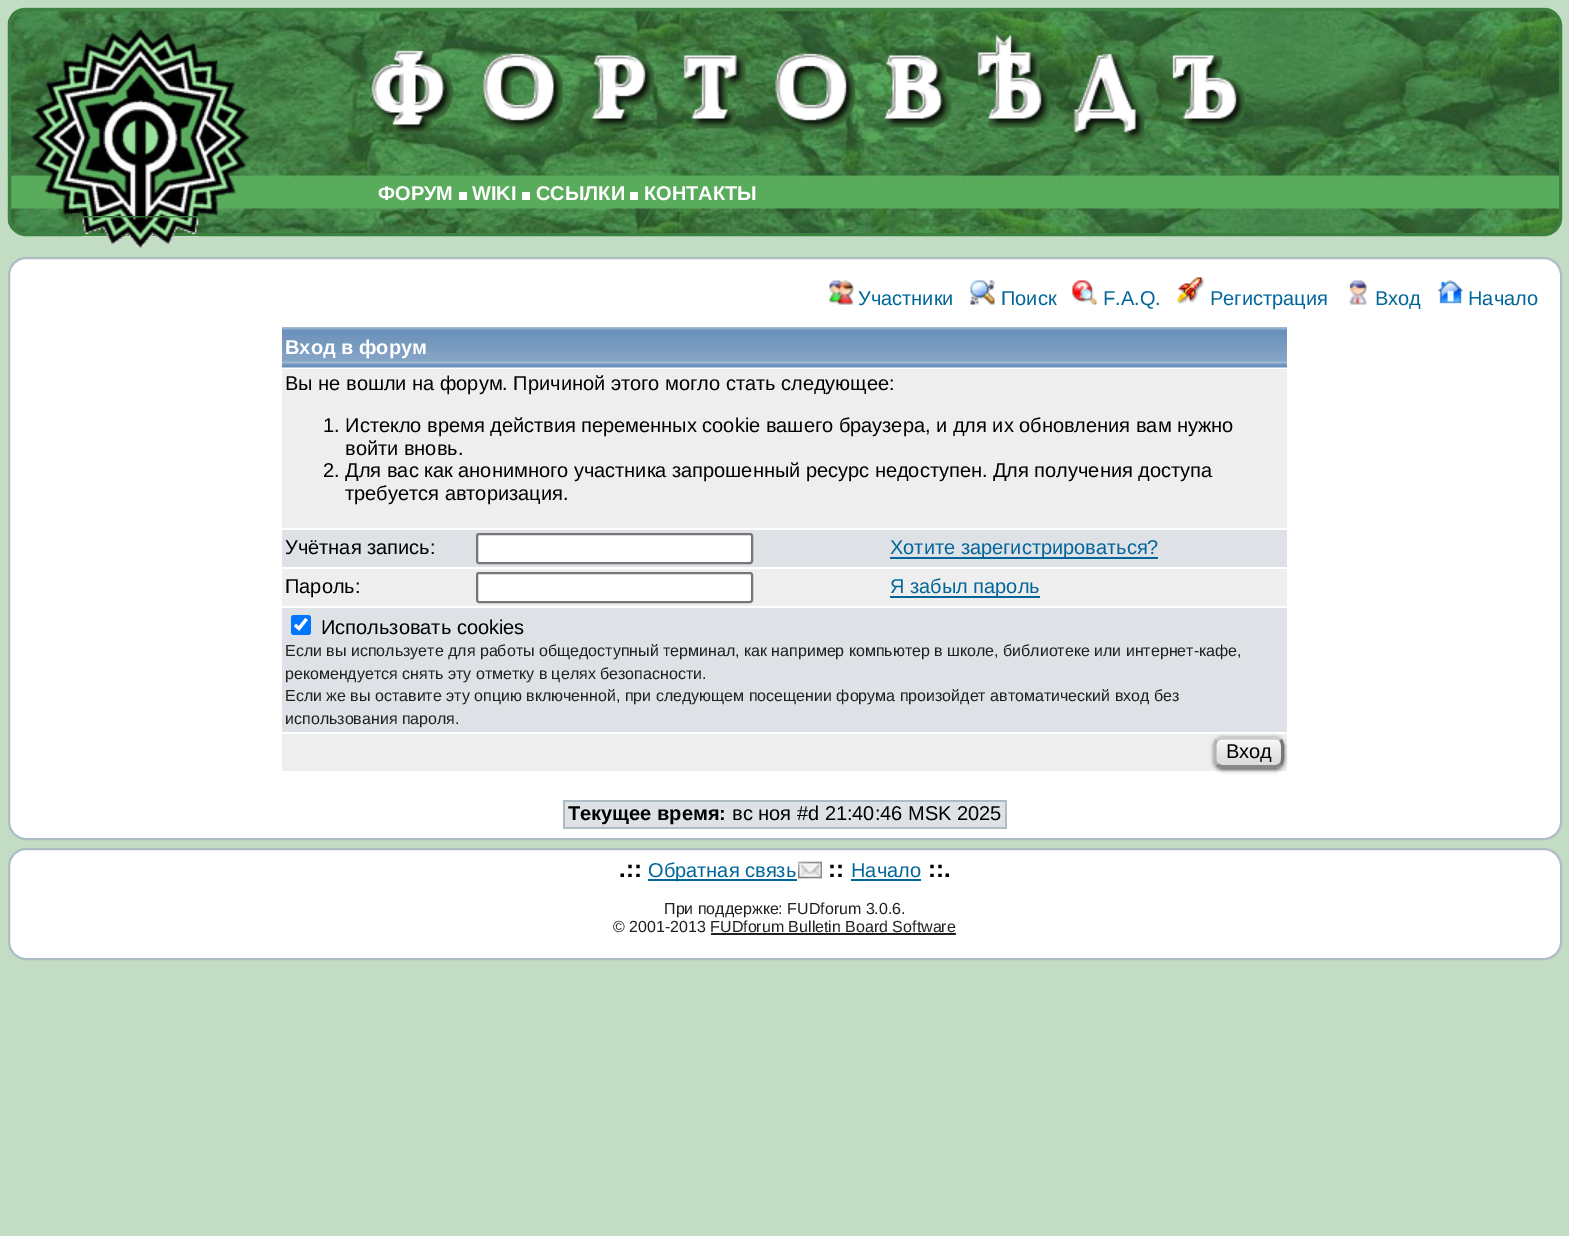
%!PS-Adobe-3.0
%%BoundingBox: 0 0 1569 1236
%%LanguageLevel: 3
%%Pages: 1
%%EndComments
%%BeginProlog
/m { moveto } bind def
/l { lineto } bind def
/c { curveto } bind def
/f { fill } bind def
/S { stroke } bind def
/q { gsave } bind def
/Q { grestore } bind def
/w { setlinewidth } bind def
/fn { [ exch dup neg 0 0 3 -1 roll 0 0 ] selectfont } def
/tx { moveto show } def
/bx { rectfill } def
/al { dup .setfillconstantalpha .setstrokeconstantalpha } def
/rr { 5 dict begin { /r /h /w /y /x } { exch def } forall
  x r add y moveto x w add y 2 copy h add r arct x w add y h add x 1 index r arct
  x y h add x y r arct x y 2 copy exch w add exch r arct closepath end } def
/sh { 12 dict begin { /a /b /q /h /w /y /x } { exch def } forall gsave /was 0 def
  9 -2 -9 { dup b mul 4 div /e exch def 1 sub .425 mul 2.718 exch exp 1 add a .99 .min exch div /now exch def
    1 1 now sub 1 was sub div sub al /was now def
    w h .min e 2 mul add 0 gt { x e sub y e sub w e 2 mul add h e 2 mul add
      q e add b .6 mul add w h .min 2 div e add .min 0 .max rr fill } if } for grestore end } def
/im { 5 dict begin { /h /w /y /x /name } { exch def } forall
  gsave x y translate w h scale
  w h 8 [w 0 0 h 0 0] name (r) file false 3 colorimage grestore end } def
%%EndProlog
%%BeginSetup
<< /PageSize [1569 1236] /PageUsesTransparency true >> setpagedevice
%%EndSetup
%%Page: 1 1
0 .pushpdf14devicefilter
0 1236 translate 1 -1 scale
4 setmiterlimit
0.761 0.867 0.765 setrgbcolor
0 0 1569 1236 bx
(image0.raw) 7 7 1555 229 im
0.235 0.506 0.251 setrgbcolor
3 w
9.5 9.5 1551 225 16.5 rr S
(image1.raw) 31 28 219 188 im
(image2.raw) 82 217 117 31 im
(image3.raw) 371 34 875 108 im
/LiberationSans-Bold 20 fn
1 setgray
(ФОРУМ) 378 200 tx
459 192 8 8 bx
(WIKI) 472 200 tx
522 192 8 8 bx
(ССЫЛКИ) 536 200 tx
630 192 8 8 bx
(КОНТАКТЫ) 644 200 tx
9 258 1552 581 17 rr q f Q
0.682 0.741 0.769 setrgbcolor
2 w
S
(image4.raw) 829 280 25 25 im
/LiberationSans-Regular 20 fn
0 0.4 0.6 setrgbcolor
(Участники) 858 305 tx
(image5.raw) 970 280 25 25 im
(Поиск) 1001 305 tx
(image6.raw) 1072 280 25 25 im
(F.A.Q.) 1103 305 tx
(image7.raw) 1177 277 28 28 im
(Регистрация) 1210 305 tx
(image8.raw) 1349 280 19 25 im
(Вход) 1375 305 tx
(image9.raw) 1438 280 25 24 im
(Начало) 1468 305 tx
(image10.raw) 282 327 1005 41 im
/LiberationSans-Bold 20 fn
1 setgray
(Вход в форум) 285 354 tx
0.933 setgray
282 369 1005 159 bx
/LiberationSans-Regular 20 fn
0 setgray
(Вы не вошли на форум. Причиной этого могло стать следующее:) 285 390 tx
(1. Истекло время действия переменных cookie вашего браузера, и для их обновления вам нужно) 323 432 tx
(войти вновь.) 345 455 tx
(2. Для вас как анонимного участника запрошенный ресурс недоступен. Для получения доступа) 323 477 tx
(требуется авторизация.) 345 500 tx
0.871 0.886 0.902 setrgbcolor
282 530 1005 37 bx
0 setgray
(Учётная запись:) 285 554 tx
1 setgray
477 534 275 29 2 rr q f Q
0.463 setgray
S
0 0.4 0.6 setrgbcolor
890 557 268 2 bx
(Хотите зарегистрироваться?) 890 554 tx
0.933 setgray
282 569 1005 37 bx
0 setgray
(Пароль:) 285 593 tx
1 setgray
477 573 275 29 2 rr q f Q
0.463 setgray
S
0 0.4 0.6 setrgbcolor
890 596 150 2 bx
(Я забыл пароль) 890 593 tx
0.871 0.886 0.902 setrgbcolor
282 608 1005 124 bx
0 0.459 1 setrgbcolor
291 615 20 20 3 rr f
1 setgray
3.1 w
295 625 m 299 628.5 l 306.5 619 l S
0 setgray
(Использовать cookies) 321 634 tx
/LiberationSans-Regular 16 fn
0.125 setgray
(Если вы используете для работы общедоступный терминал, как например компьютер в школе, библиотеке или интернет-кафе,) 285 656 tx
(рекомендуется снять эту отметку в целях безопасности.) 285 679 tx
(Если же вы оставите эту опцию включенной, при следующем посещении форума произойдет автоматический вход без) 285 701 tx
(использования пароля.) 285 724 tx
0.933 setgray
282 734 1005 37 bx
0 setgray
1214 738 70 32 9 2 0.6 sh
0.867 setgray
1214 737 70 31 9 rr f
(image11.raw) 1213 739 71 23 im
0.8 setgray
3 w
1217 740 m 1218.5 739 1220.5 738 1222.5 738 c 1275 738 l 1277 738 1279 739 1280.5 740 c S
0.471 0.467 0.471 setrgbcolor
1280.5 740 m 1283.5 743.5 1282.5 748 1282.5 752 c 1282.5 756.5 1283.5 761 1280.5 764.5 c S
0.533 setgray
1280.5 764.5 m 1279 765.5 1277 766.5 1275 766.5 c 1222.5 766.5 l 1220.5 766.5 1218.5 765.5 1217 764.5 c S
0.706 0.698 0.706 setrgbcolor
1217 764.5 m 1214 761 1215 756.5 1215 752 c 1215 748 1214 743.5 1217 740 c S
/LiberationSans-Regular 20 fn
0 setgray
(Вход) 1226 758 tx
0.871 0.886 0.902 setrgbcolor
565 802 440 25 bx
/LiberationSans-Bold 20 fn
0 setgray
(Текущее время:) 568 820 tx
0.682 0.741 0.769 setrgbcolor
563 827 163 2 bx
563 800 444 2 bx
563 800 2 28 bx
1005 800 2 28 bx
726 827 281 2 bx
/LiberationSans-Regular 20 fn
0 setgray
(вс ноя #d 21:40:46 MSK 2025) 732 820 tx
1 setgray
9 849 1552 110 17 rr q f Q
0.682 0.741 0.769 setrgbcolor
2 w
S
/LiberationSans-Bold 24 fn
0 setgray
(.::) 619 877 tx
0 0.4 0.6 setrgbcolor
648 879 149 2 bx
/LiberationSans-Regular 20 fn
(Обратная связь) 648 877 tx
(image12.raw) 798 861 24 18 im
/LiberationSans-Bold 24 fn
0 setgray
(::) 828 877 tx
/LiberationSans-Regular 20 fn
0 0.4 0.6 setrgbcolor
(Начало) 851 877 tx
851 879 70 2 bx
/LiberationSans-Bold 24 fn
0 setgray
(::.) 928 877 tx
/LiberationSans-Regular 16 fn
0.125 setgray
(При поддержке: FUDforum 3.0.6.) 664 914 tx
(© 2001-2013 FUDforum Bulletin Board Software) 613 932 tx
711 933 245 2 bx
.poppdf14devicefilter showpage
%%EOF
